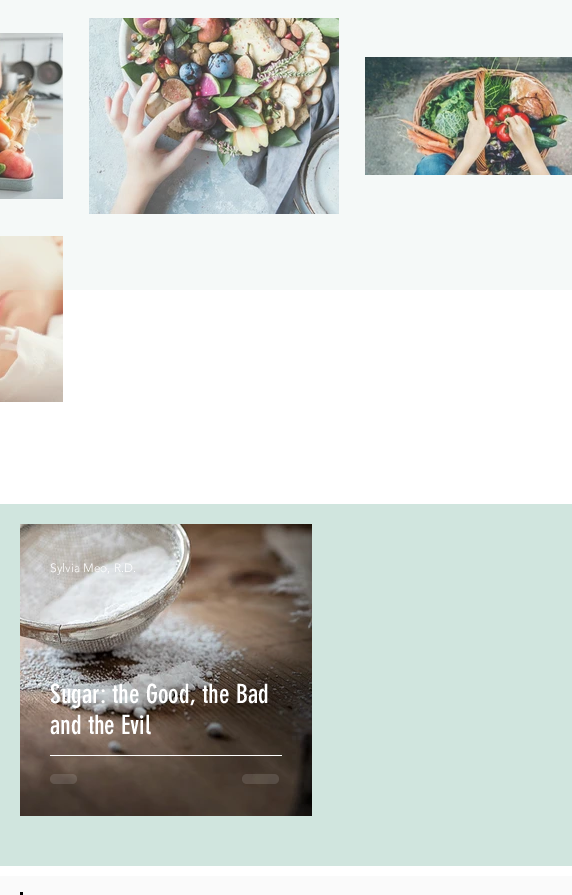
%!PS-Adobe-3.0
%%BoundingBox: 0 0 572 895
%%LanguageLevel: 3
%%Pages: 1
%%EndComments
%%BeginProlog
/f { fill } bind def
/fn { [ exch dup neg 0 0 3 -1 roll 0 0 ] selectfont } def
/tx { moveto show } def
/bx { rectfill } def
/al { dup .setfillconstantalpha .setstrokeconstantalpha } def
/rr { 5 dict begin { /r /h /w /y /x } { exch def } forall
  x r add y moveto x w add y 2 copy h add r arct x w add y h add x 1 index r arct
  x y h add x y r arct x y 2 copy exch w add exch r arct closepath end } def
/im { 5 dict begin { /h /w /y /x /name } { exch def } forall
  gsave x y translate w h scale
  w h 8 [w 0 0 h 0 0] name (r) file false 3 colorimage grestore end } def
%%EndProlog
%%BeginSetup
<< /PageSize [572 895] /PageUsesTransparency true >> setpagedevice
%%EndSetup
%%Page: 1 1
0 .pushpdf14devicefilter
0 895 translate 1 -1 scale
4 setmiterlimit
1 setgray
0 0 572 895 bx
(image0.raw) 0 33 63 166 im
(image1.raw) 89 18 250 196 im
(image2.raw) 365 57 207 118 im
(image3.raw) 0 236 63 166 im
0.21 al
0.816 0.898 0.871 setrgbcolor
0 0 572 290 bx
1 al
0 504 572 362 bx
(image4.raw) 20 524 292 292 im
/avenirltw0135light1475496-Light 12 fn
1 setgray
(Sylvia Meo, R.D.) 50 572 tx
/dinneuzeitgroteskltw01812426-Regular 26 fn
(Sugar: the Good, the Bad) 50 703 tx
(and the Evil) 50 734 tx
50 755 232 1 bx
0.12 al
50 774 27 10 5 rr f
242 774 37 10 5 rr f
1 al
0.98 setgray
0 876 572 19 bx
0 setgray
20 892 3 3 bx
.poppdf14devicefilter showpage
%%EOF
